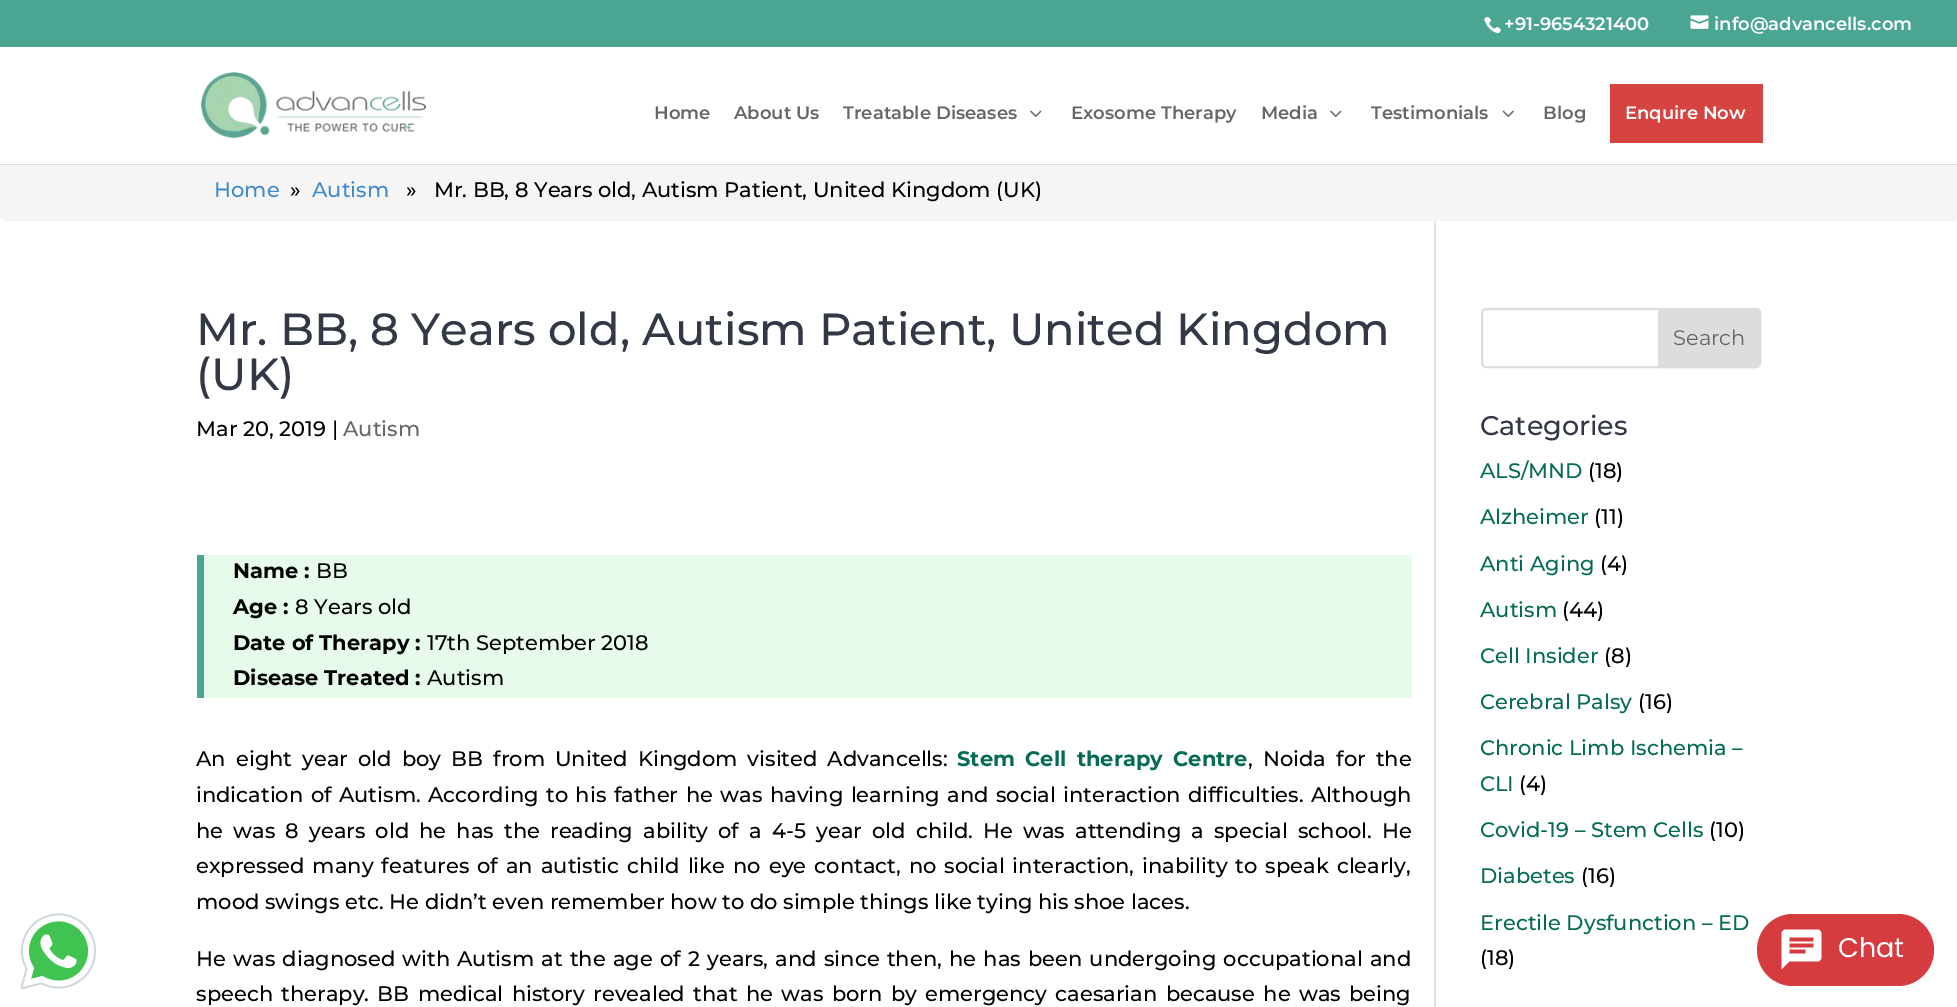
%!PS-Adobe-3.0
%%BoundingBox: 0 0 1957 1007
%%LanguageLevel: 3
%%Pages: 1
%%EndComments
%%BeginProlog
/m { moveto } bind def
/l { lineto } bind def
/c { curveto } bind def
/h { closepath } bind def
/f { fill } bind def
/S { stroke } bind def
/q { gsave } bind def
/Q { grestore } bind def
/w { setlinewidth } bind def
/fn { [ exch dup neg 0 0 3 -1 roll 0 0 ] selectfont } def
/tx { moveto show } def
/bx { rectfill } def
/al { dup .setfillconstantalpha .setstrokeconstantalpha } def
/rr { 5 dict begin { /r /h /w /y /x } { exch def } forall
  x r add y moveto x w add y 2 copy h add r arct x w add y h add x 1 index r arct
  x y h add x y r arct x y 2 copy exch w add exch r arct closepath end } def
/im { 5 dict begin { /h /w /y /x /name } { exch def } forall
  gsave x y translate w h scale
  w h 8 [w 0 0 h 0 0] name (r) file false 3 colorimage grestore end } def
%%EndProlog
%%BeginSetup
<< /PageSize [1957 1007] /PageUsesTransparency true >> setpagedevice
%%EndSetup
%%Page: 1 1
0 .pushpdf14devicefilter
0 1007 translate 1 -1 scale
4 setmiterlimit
1 setgray
0 0 1957 1007 bx
(image6.raw) 20 913 76 76 im
(image0.raw) 20 913 76 76 im
0.29 0.647 0.573 setrgbcolor
0 0 1957 47 bx
(image1.raw) 1484 16 17 18 im
/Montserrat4-Thin 18 fn
1 setgray
(+91-9654321400) 1504 30 tx
(image2.raw) 1690 15 19 14 im
(info@advancells.com) 1714 30 tx
0.961 setgray
0 161 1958 60 6 rr f
0.1 al
0 setgray
0 164 m 0 165 l 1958 165 l 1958 48 l 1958 164 l h f
1 al
1 setgray
1 161 1956 3 bx
(image3.raw) 201 72 225 66 im
0.4 setgray
(Home) 654 119 tx
(About Us) 734 119 tx
(Treatable Diseases) 843 119 tx
(image4.raw) 1030 110 12 7 im
(Exosome Therapy) 1071 119 tx
(Media) 1261 119 tx
(image4.raw) 1330 110 12 7 im
(Testimonials) 1371 119 tx
(image5.raw) 1502 110 12 7 im
(Blog) 1543 119 tx
0.839 0.267 0.259 setrgbcolor
1610 84 153 59 bx
1 setgray
(Enquire Now) 1625 119 tx
/Montserrat-Thin 21 fn
0.259 0.545 0.792 setrgbcolor
(Home) 214 197 tx
0 setgray
(») 290 197 tx
0.259 0.545 0.792 setrgbcolor
(Autism) 312 197 tx
0 setgray
(»   Mr. BB, 8 Years old, Autism Patient, United Kingdom \(UK\)) 406 197 tx
0.886 setgray
1434 221 2 786 bx
/Montserrat-Thin 45 fn
0.196 0.22 0.271 setrgbcolor
(Mr. BB, 8 Years old, Autism Patient, United Kingdom) 196 345 tx
(\(UK\)) 196 390 tx
/Montserrat-Thin 21 fn
0 setgray
(Mar 20, 2019 |) 196 436 tx
0.4 setgray
(Autism) 343 436 tx
0.906 0.984 0.918 setrgbcolor
204 555 1208 143 bx
0.29 0.647 0.573 setrgbcolor
197 555 7 143 bx
/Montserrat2-Thin 21 fn
0 setgray
(Name :) 233 578 tx
/Montserrat-Thin 21 fn
(BB) 316 578 tx
/Montserrat2-Thin 21 fn
(Age :) 233 614 tx
/Montserrat-Thin 21 fn
(8 Years old) 295 614 tx
/Montserrat2-Thin 21 fn
(Date of Therapy :) 233 650 tx
/Montserrat-Thin 21 fn
(17th September 2018) 427 650 tx
/Montserrat2-Thin 21 fn
(Disease Treated :) 233 685 tx
/Montserrat-Thin 21 fn
(Autism) 427 685 tx
196 766 m 4.5 0 32 (An eight year old boy BB from United Kingdom visited Advancells:) widthshow
/Montserrat2-Thin 21 fn
0.02 0.42 0.329 setrgbcolor
957 766 m 4.5 0 32 (Stem Cell therapy Centre) widthshow
/Montserrat-Thin 21 fn
0 setgray
1248 766 m 4.5 0 32 (, Noida for the) widthshow
196 802 m 1.9 0 32 (indication of Autism. According to his father he was having learning and social interaction difficulties. Although) widthshow
196 838 m 4.5 0 32 (he was 8 years old he has the reading ability of a 4-5 year old child. He was attending a special school. He) widthshow
196 873 m 2.4 0 32 (expressed many features of an autistic child like no eye contact, no social interaction, inability to speak clearly,) widthshow
(mood swings etc. He didn’t even remember how to do simple things like tying his shoe laces.) 196 909 tx
196 966 m 1.6 0 32 (He was diagnosed with Autism at the age of 2 years, and since then, he has been undergoing occupational and) widthshow
196 1001 m 2.75 0 32 (speech therapy. BB medical history revealed that he was born by emergency caesarian because he was being) widthshow
0.867 setgray
2 w
1482 309 278 58 4 rr S
1659 309 m 1756 309 l 1758 309 1760 311 1760 313 c 1760 363 l 1760 365 1758 367 1756 367 c 1659 367 l h q f Q
S
/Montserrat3-Thin 21 fn
0.4 setgray
(Search) 1673 345 tx
/Montserrat-Thin 27 fn
0.196 0.22 0.271 setrgbcolor
(Categories) 1480 435 tx
/Montserrat-Thin 21 fn
0.02 0.42 0.329 setrgbcolor
(ALS/MND) 1480 478 tx
0 setgray
(\(18\)) 1588 478 tx
0.02 0.42 0.329 setrgbcolor
(Alzheimer) 1480 524 tx
0 setgray
(\(11\)) 1594 524 tx
0.02 0.42 0.329 setrgbcolor
(Anti Aging) 1480 571 tx
0 setgray
(\(4\)) 1600 571 tx
0.02 0.42 0.329 setrgbcolor
(Autism) 1480 617 tx
0 setgray
(\(44\)) 1562 617 tx
0.02 0.42 0.329 setrgbcolor
(Cell Insider) 1480 663 tx
0 setgray
(\(8\)) 1604 663 tx
0.02 0.42 0.329 setrgbcolor
(Cerebral Palsy) 1480 709 tx
0 setgray
(\(16\)) 1638 709 tx
0.02 0.42 0.329 setrgbcolor
(Chronic Limb Ischemia –) 1480 755 tx
(CLI) 1480 791 tx
0 setgray
(\(4\)) 1519 791 tx
0.02 0.42 0.329 setrgbcolor
(Covid-19 – Stem Cells) 1480 837 tx
0 setgray
(\(10\)) 1709 837 tx
0.02 0.42 0.329 setrgbcolor
(Diabetes) 1480 883 tx
0 setgray
(\(16\)) 1581 883 tx
0.02 0.42 0.329 setrgbcolor
(Erectile Dysfunction – ED) 1480 930 tx
0 setgray
(\(18\)) 1480 965 tx
0.835 0.231 0.247 setrgbcolor
1757 914 177 72 36 rr f
(image7.raw) 1781 929 41 41 im
/Poppins-Regular 27 fn
1 setgray
(Chat) 1838 957 tx
.poppdf14devicefilter showpage
%%EOF
